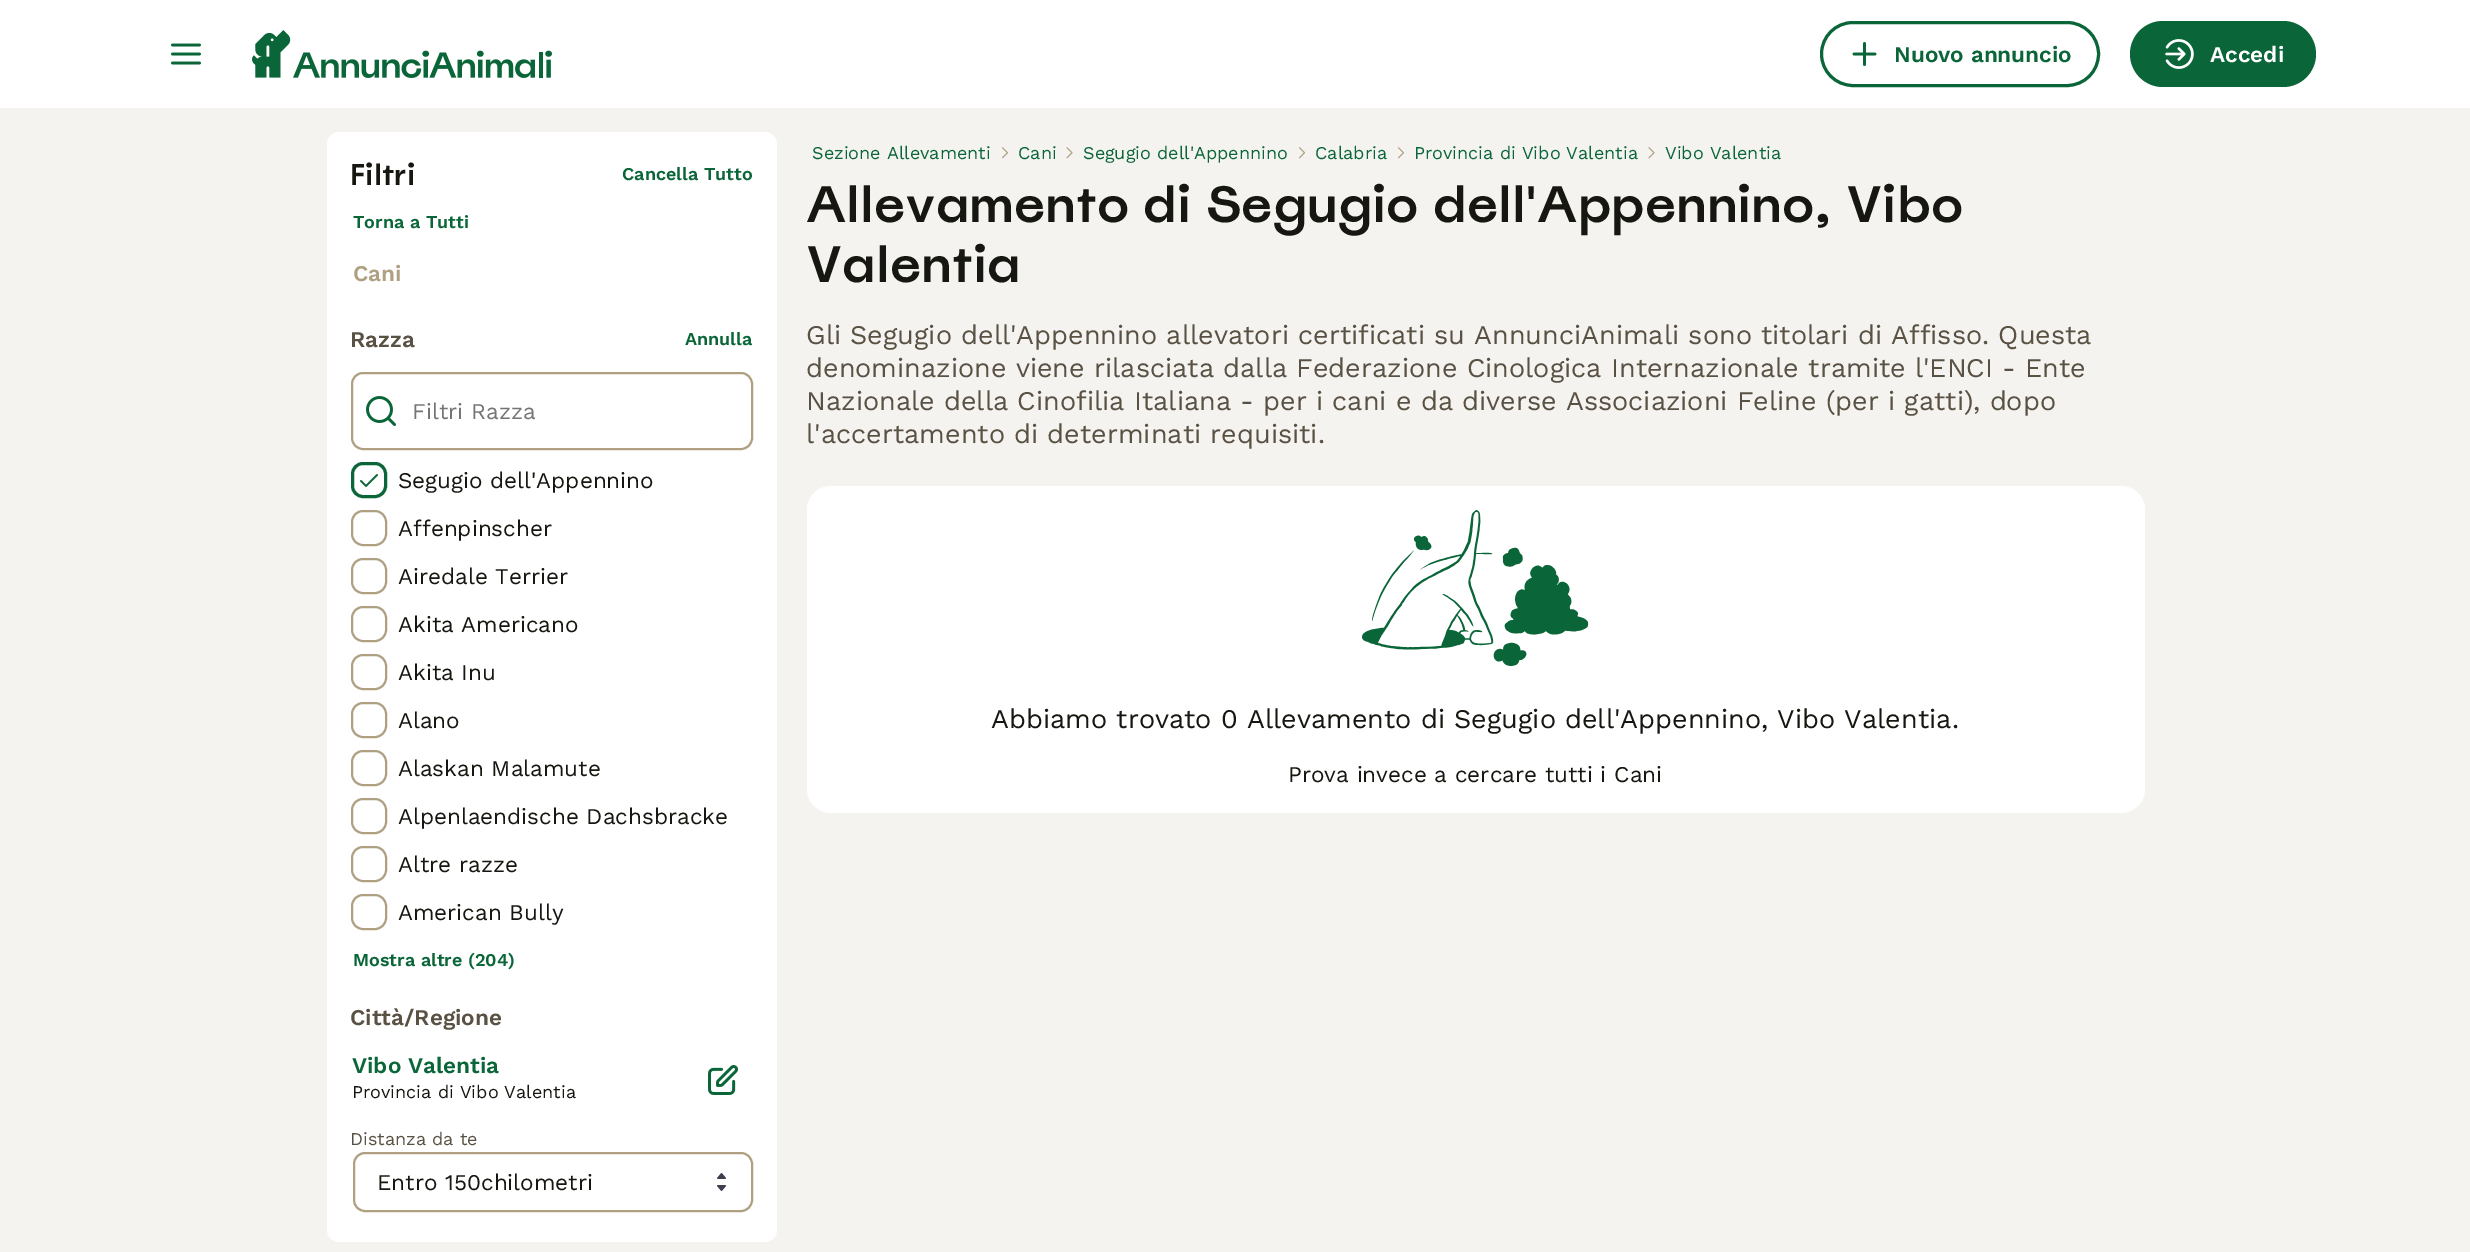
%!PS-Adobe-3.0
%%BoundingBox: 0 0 2470 1252
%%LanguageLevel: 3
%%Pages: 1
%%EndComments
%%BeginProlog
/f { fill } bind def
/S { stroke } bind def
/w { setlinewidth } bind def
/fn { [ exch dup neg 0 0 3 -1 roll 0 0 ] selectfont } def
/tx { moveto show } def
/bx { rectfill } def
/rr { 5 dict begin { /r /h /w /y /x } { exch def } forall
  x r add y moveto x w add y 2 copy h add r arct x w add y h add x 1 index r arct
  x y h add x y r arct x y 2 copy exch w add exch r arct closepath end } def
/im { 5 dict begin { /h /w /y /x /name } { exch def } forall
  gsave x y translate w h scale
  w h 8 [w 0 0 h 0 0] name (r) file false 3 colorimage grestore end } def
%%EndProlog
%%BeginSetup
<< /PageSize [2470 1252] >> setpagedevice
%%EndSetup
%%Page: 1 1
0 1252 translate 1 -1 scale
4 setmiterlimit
0.961 0.953 0.941 setrgbcolor
0 0 2470 1252 bx
1 setgray
0 0 2470 108 bx
(image0.raw) 171 43 30 22 im
(image1.raw) 252 30 300 48 im
0.039 0.4 0.22 setrgbcolor
3 w
1821.5 22.5 277 63 31.5 rr S
(image2.raw) 1852 42 25 24 im
/WorkSans-SemiBold 22.5 fn
(Nuovo annuncio) 1894 62 tx
2130 21 186 66 33 rr f
(image3.raw) 2165 39 29 30 im
1 setgray
(Accedi) 2210 62 tx
327 132 450 1110 12 rr f
/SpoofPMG-Medium 30 fn
0.09 0.09 0.067 setrgbcolor
(Filtri) 350 185 tx
/WorkSans-SemiBold 18 fn
0.039 0.4 0.22 setrgbcolor
(Cancella Tutto) 622 180 tx
(Torna a Tutti) 353 228 tx
/WorkSans-SemiBold 22.5 fn
0.69 0.627 0.51 setrgbcolor
(Cani) 353 281 tx
0.349 0.318 0.263 setrgbcolor
(Razza) 350 347 tx
/WorkSans-SemiBold 18 fn
0.039 0.4 0.22 setrgbcolor
(Annulla) 685 345 tx
0.69 0.627 0.51 setrgbcolor
2 w
352 373 400 76 11 rr S
(image4.raw) 366 396 30 30 im
/WorkSans-Regular 22.5 fn
0.459 setgray
(Filtri Razza) 412 419 tx
0.039 0.4 0.22 setrgbcolor
3 w
352.5 463.5 33 33 10.5 rr S
(image5.raw) 360 474 18 13 im
0.09 0.09 0.067 setrgbcolor
(Segugio dell'Appennino) 398 488 tx
0.69 0.627 0.51 setrgbcolor
2 w
352 511 34 34 11 rr S
0.09 0.09 0.067 setrgbcolor
(Affenpinscher) 398 536 tx
0.69 0.627 0.51 setrgbcolor
352 559 34 34 11 rr S
0.09 0.09 0.067 setrgbcolor
(Airedale Terrier) 398 584 tx
0.69 0.627 0.51 setrgbcolor
352 607 34 34 11 rr S
0.09 0.09 0.067 setrgbcolor
(Akita Americano) 398 632 tx
0.69 0.627 0.51 setrgbcolor
352 655 34 34 11 rr S
0.09 0.09 0.067 setrgbcolor
(Akita Inu) 398 680 tx
0.69 0.627 0.51 setrgbcolor
352 703 34 34 11 rr S
0.09 0.09 0.067 setrgbcolor
(Alano) 398 728 tx
0.69 0.627 0.51 setrgbcolor
352 751 34 34 11 rr S
0.09 0.09 0.067 setrgbcolor
(Alaskan Malamute) 398 776 tx
0.69 0.627 0.51 setrgbcolor
352 799 34 34 11 rr S
0.09 0.09 0.067 setrgbcolor
(Alpenlaendische Dachsbracke) 398 824 tx
0.69 0.627 0.51 setrgbcolor
352 847 34 34 11 rr S
0.09 0.09 0.067 setrgbcolor
(Altre razze) 398 872 tx
0.69 0.627 0.51 setrgbcolor
352 895 34 34 11 rr S
0.09 0.09 0.067 setrgbcolor
(American Bully) 398 920 tx
/WorkSans-SemiBold 18 fn
0.039 0.4 0.22 setrgbcolor
(Mostra altre \(204\)) 353 966 tx
/WorkSans-SemiBold 22.5 fn
0.349 0.318 0.263 setrgbcolor
(Città/Regione) 350 1025 tx
0.039 0.4 0.22 setrgbcolor
(Vibo Valentia) 352 1073 tx
/WorkSans-Regular 18 fn
0.09 0.09 0.067 setrgbcolor
(Provincia di Vibo Valentia) 352 1098 tx
(image6.raw) 708 1065 30 30 im
0.349 0.318 0.263 setrgbcolor
(Distanza da te) 350 1145 tx
(image7.raw) 717 1173 9 18 im
0.69 0.627 0.51 setrgbcolor
354 1153 398 58 11 rr S
/WorkSans-Regular 22.5 fn
0.09 0.09 0.067 setrgbcolor
(Entro 150chilometri) 377 1190 tx
/WorkSans-Regular 18 fn
0.039 0.4 0.22 setrgbcolor
(Sezione Allevamenti) 812 159 tx
(image8.raw) 1002 147 6 12 im
(Cani) 1018 159 tx
(image9.raw) 1066 147 7 12 im
(Segugio dell'Appennino) 1083 159 tx
(image8.raw) 1299 147 6 12 im
(Calabria) 1315 159 tx
(image8.raw) 1398 147 6 12 im
(Provincia di Vibo Valentia) 1414 159 tx
(image9.raw) 1648 147 7 12 im
(Vibo Valentia) 1665 159 tx
/SpoofPMG-Medium 51 fn
0.09 0.09 0.067 setrgbcolor
(Allevamento di Segugio dell'Appennino, Vibo) 806 222 tx
(Valentia) 806 282 tx
/WorkSans-Regular 27 fn
0.349 0.318 0.263 setrgbcolor
(Gli Segugio dell'Appennino allevatori certificati su AnnunciAnimali sono titolari di Affisso. Questa) 806 344 tx
(denominazione viene rilasciata dalla Federazione Cinologica Internazionale tramite l'ENCI - Ente) 806 377 tx
(Nazionale della Cinofilia Italiana - per i cani e da diverse Associazioni Feline \(per i gatti\), dopo) 806 410 tx
(l'accertamento di determinati requisiti.) 806 443 tx
1 setgray
807 486 1338 327 24 rr f
(image10.raw) 1362 510 227 156 im
0.09 0.09 0.067 setrgbcolor
(Abbiamo trovato 0 Allevamento di Segugio dell'Appennino, Vibo Valentia.) 991 728 tx
/WorkSans-Regular 22.5 fn
(Prova invece a cercare tutti i Cani) 1288 782 tx
showpage
%%EOF
